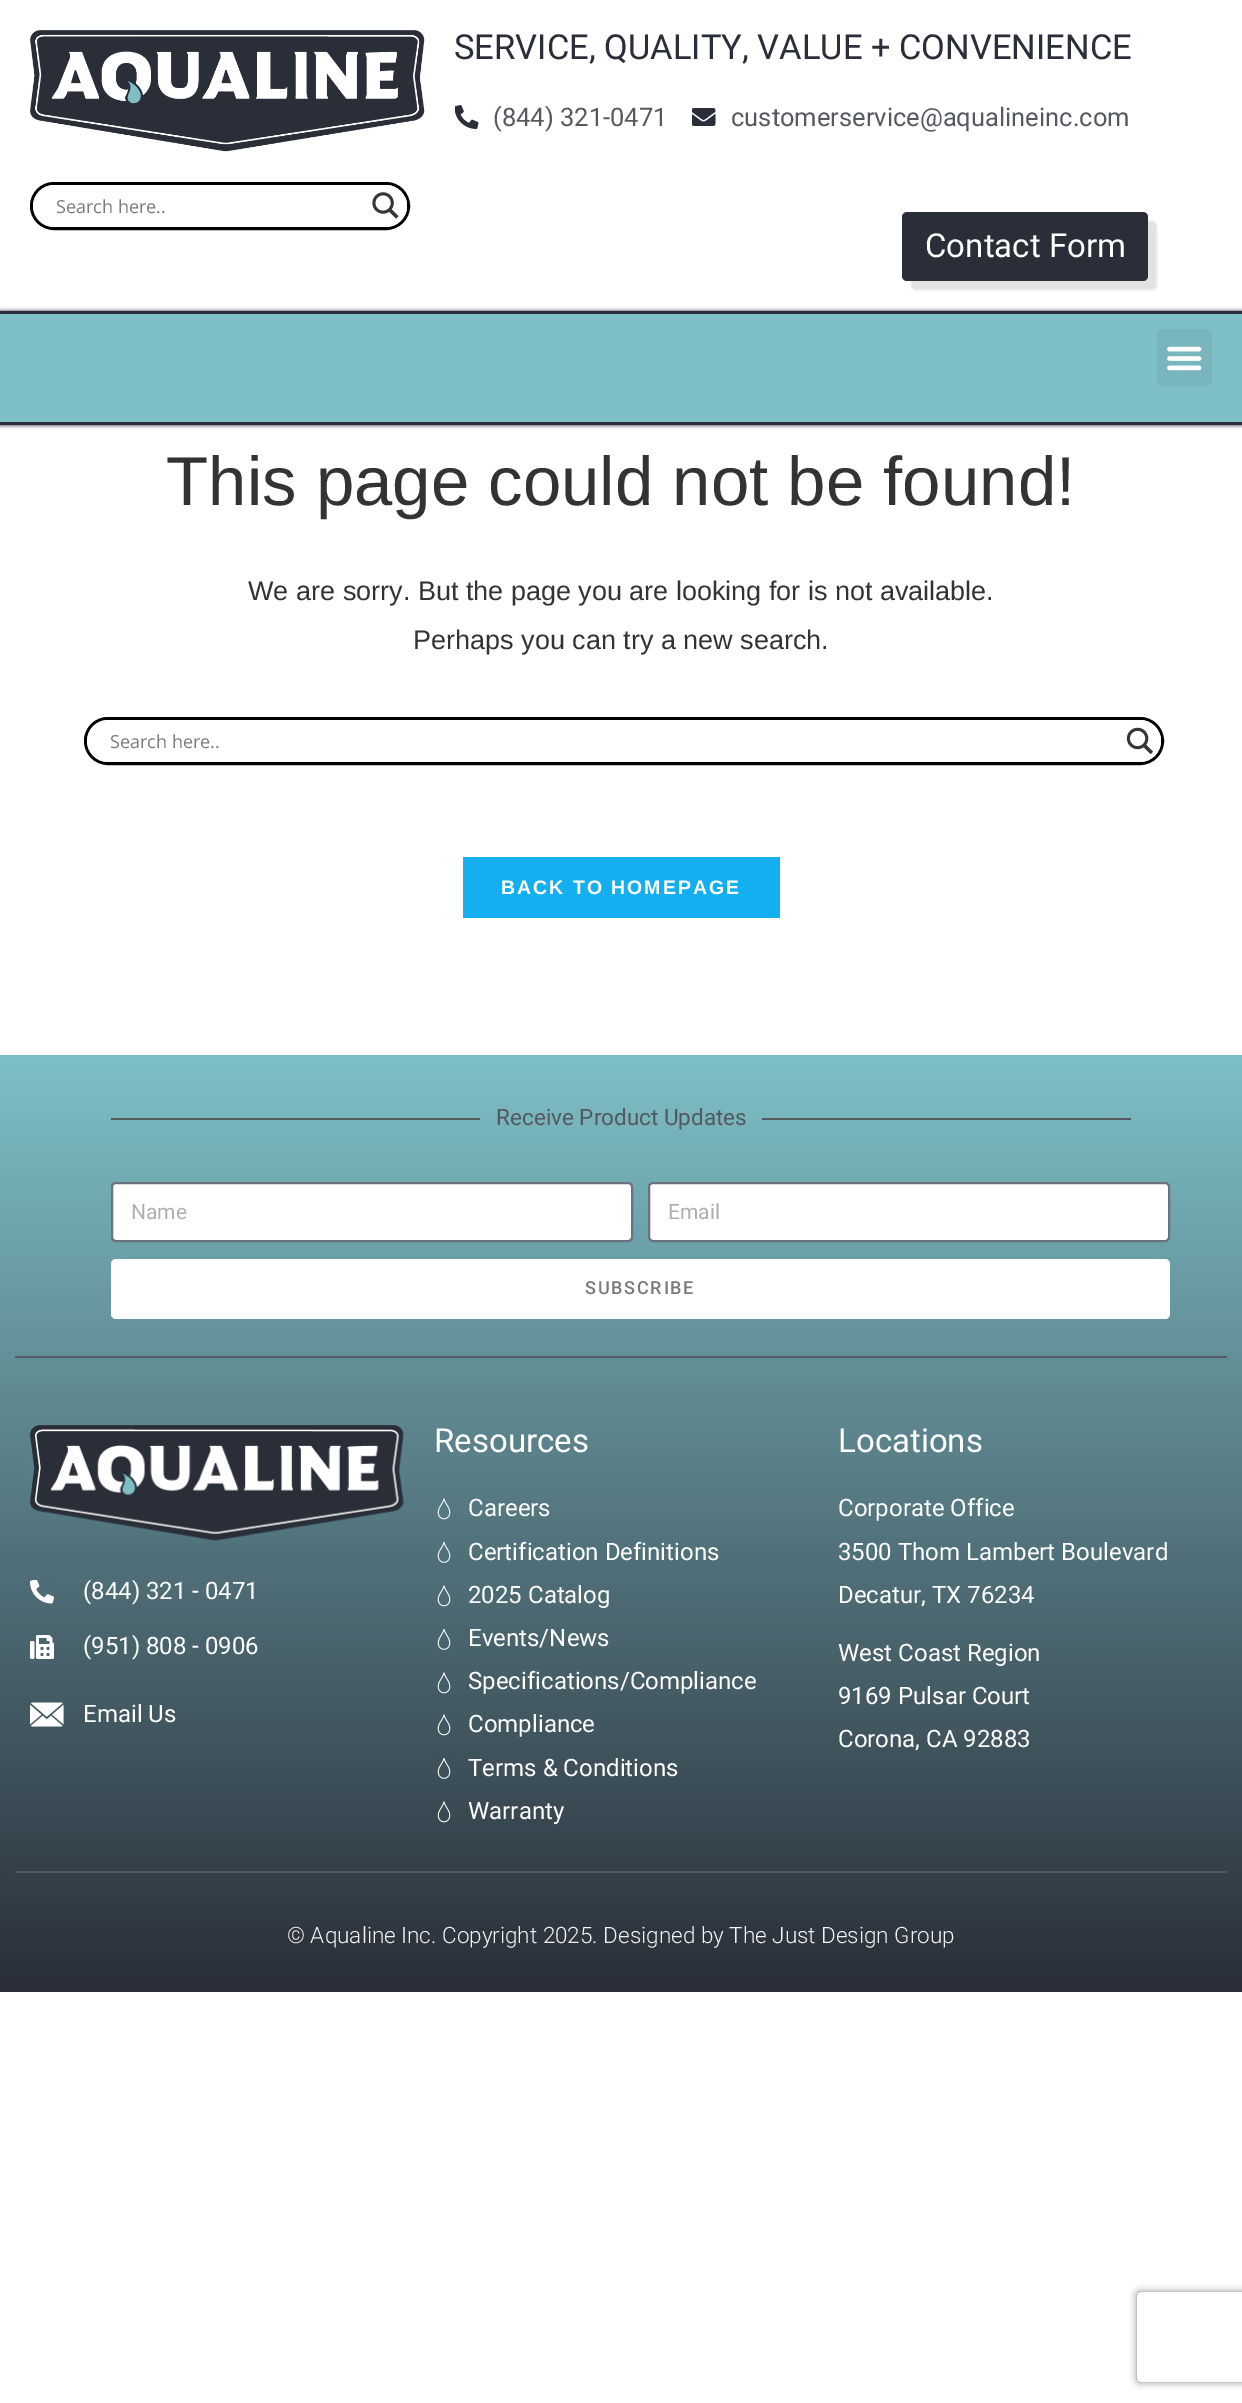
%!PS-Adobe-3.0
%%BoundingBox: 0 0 1242 2403
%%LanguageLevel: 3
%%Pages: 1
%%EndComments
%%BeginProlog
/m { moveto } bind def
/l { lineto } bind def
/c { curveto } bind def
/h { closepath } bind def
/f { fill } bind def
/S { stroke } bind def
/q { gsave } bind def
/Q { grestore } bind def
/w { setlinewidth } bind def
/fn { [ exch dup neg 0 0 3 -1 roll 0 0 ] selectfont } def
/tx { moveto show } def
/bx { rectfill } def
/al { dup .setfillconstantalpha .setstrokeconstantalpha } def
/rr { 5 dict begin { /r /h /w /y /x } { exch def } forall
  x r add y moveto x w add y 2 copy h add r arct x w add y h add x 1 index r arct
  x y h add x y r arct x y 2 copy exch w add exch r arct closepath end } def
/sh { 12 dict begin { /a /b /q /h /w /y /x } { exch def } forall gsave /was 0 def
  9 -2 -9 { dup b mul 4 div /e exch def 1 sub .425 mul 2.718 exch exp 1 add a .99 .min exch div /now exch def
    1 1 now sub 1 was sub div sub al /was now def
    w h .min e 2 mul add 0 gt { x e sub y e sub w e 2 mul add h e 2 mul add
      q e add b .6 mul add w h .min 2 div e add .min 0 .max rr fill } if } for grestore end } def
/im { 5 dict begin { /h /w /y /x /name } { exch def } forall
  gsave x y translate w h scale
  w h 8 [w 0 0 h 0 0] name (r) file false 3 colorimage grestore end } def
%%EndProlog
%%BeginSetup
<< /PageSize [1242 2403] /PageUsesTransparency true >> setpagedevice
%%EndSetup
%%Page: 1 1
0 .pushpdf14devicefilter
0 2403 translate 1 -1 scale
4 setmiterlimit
1 setgray
0 0 1242 2403 bx
0.945 setgray
0 425 1242 2 bx
(image0.raw) 30 30 395 122 im
/Roboto-Regular 34.5 fn
0.161 0.18 0.22 setrgbcolor
(SERVICE, QUALITY, VALUE + CONVENIENCE) 454 59 tx
(image1.raw) 455 105 24 24 im
/Roboto-Regular 25.5 fn
0.329 0.349 0.373 setrgbcolor
(\(844\) 321-0471) 493 126 tx
(image2.raw) 692 108 24 18 im
(customerservice@aqualineinc.com) 731 126 tx
0 setgray
3 w
31.5 183.5 377 45 22.5 rr S
1 setgray
33 185 374 42 21 rr f
/OpenSans-Regular 18 fn
0.478 setgray
(Search here..) 56 213 tx
q
365 185 42 42 rectclip
0.64 al
1 setgray
363 186 m 363 227 l 216 227 l 216 185 l 386 185 l 392 186 l h 405 215 m 408 209 408 203 405 197 c h eofill
Q
(image3.raw) 372 192 27 27 im
0 setgray
911 221 246 69 5 1 0.11 sh
0.161 0.18 0.22 setrgbcolor
902 212 246 69 5 rr f
/Roboto-Regular 33 fn
1 setgray
(Contact Form) 925 257 tx
0.161 0.18 0.22 setrgbcolor
0 311 1242 114 0 2 1 sh
0.494 0.749 0.776 setrgbcolor
0 314 1242 108 bx
0.161 0.18 0.22 setrgbcolor
0 311 1242 3 bx
0 422 1242 3 bx
0.471 0.71 0.737 setrgbcolor
1157 329 55 57 5 rr f
(image4.raw) 1167 346 35 25 im
/LiberationSans-Regular 69 fn
0.2 setgray
(This page could not be found!) 166 505 tx
/LiberationSans-Regular 27 fn
(We are sorry. But the page you are looking for is not available.) 248 600 tx
(Perhaps you can try a new search.) 413 649 tx
0 setgray
85.5 718.5 1077 45 22.5 rr S
1 setgray
87 720 1074 42 21 rr f
/OpenSans-Regular 18 fn
0.478 setgray
(Search here..) 110 748 tx
q
1119 720 42 42 rectclip
0.64 al
1 setgray
1118 722 m 1118 762 l 970 762 l 970 720 l 1140 720 l 1143 720 1146 721 1149 722 c h 1160 747 m 1161 743 1161 739 1160 735 c h eofill
Q
(image5.raw) 1126 727 28 28 im
0.075 0.686 0.941 setrgbcolor
463 857 317 61 bx
/LiberationSans-Bold 19.5 fn
1 setgray
501 894 m 2 0 (BACK TO HOMEPAGE) ashow
q 0 1055 m 1242 1055 l 1242 1992 l 0 1992 l h clip newpath
<< /ShadingType 2 /ColorSpace /DeviceRGB /Coords [621 1055 621 1992] /Extend [true true] /Function << /FunctionType 2 /Domain [0 1] /C0 [0.494 0.749 0.776] /C1 [0.161 0.18 0.22] /N 1 >> >> shfill Q
0.329 0.349 0.373 setrgbcolor
111 1118 369 2 bx
/Roboto-Regular 22.5 fn
(Receive Product Updates) 496 1125 tx
762 1118 369 2 bx
1 setgray
112 1183 520 58 4 rr q f Q
0.412 0.447 0.49 setrgbcolor
2 w
S
/Roboto-Regular 21 fn
0.686 setgray
(Name) 131 1219 tx
1 setgray
649 1183 520 58 4 rr q f Q
0.412 0.447 0.49 setrgbcolor
S
0.686 setgray
(Email) 668 1219 tx
1 setgray
111 1259 1059 60 5 rr f
/Roboto-Medium 18 fn
0.478 setgray
585 1294 m 1.75 0 (SUBSCRIBE) ashow
q
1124 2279 m 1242 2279 l 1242 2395 l 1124 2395 l h 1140 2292 m 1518 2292 l 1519.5 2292 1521 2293.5 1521 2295 c 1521 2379 l 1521 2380.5 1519.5 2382 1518 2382 c 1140 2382 l 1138.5 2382 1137 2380.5 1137 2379 c 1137 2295 l 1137 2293.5 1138.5 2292 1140 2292 c h eoclip newpath
0.502 setgray
1137 2292 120 90 3 4 1 sh
Q
0.329 0.349 0.373 setrgbcolor
15 1356 1212 2 bx
(image6.raw) 30 1425 374 116 im
(image7.raw) 30 1580 24 24 im
/Roboto-Regular 24 fn
1 setgray
(\(844\) 321 - 0471) 83 1599 tx
(image8.raw) 30 1635 24 24 im
(\(951\) 808 - 0906) 83 1654 tx
(image9.raw) 30 1702 34 25 im
(Email Us) 83 1722 tx
/Roboto-Regular 33 fn
(Resources) 434 1452 tx
(image10.raw) 437 1498 14 22 im
/Roboto-Regular 24 fn
(Careers) 468 1516 tx
(image11.raw) 437 1541 14 22 im
(Certification Definitions) 468 1560 tx
(image12.raw) 437 1585 14 22 im
(2025 Catalog) 468 1603 tx
(image13.raw) 437 1628 14 22 im
(Events/News) 468 1646 tx
(image14.raw) 437 1672 14 22 im
(Specifications/Compliance) 468 1689 tx
(image15.raw) 437 1714 14 22 im
(Compliance) 468 1732 tx
(image16.raw) 437 1757 14 22 im
(Terms & Conditions) 468 1776 tx
(image17.raw) 437 1801 14 22 im
(Warranty) 468 1819 tx
/Roboto-Regular 33 fn
(Locations) 838 1452 tx
/Roboto-Regular 24 fn
(Corporate Office) 838 1516 tx
(3500 Thom Lambert Boulevard) 838 1560 tx
(Decatur, TX 76234) 838 1603 tx
(West Coast Region) 838 1661 tx
(9169 Pulsar Court) 838 1704 tx
(Corona, CA 92883) 838 1747 tx
0.329 0.349 0.373 setrgbcolor
15 1871 1212 2 bx
/Roboto-Light 22.5 fn
0.957 0.957 0.969 setrgbcolor
(© Aqualine Inc. Copyright 2025. Designed by The Just Design Group) 287 1943 tx
.poppdf14devicefilter showpage
%%EOF
